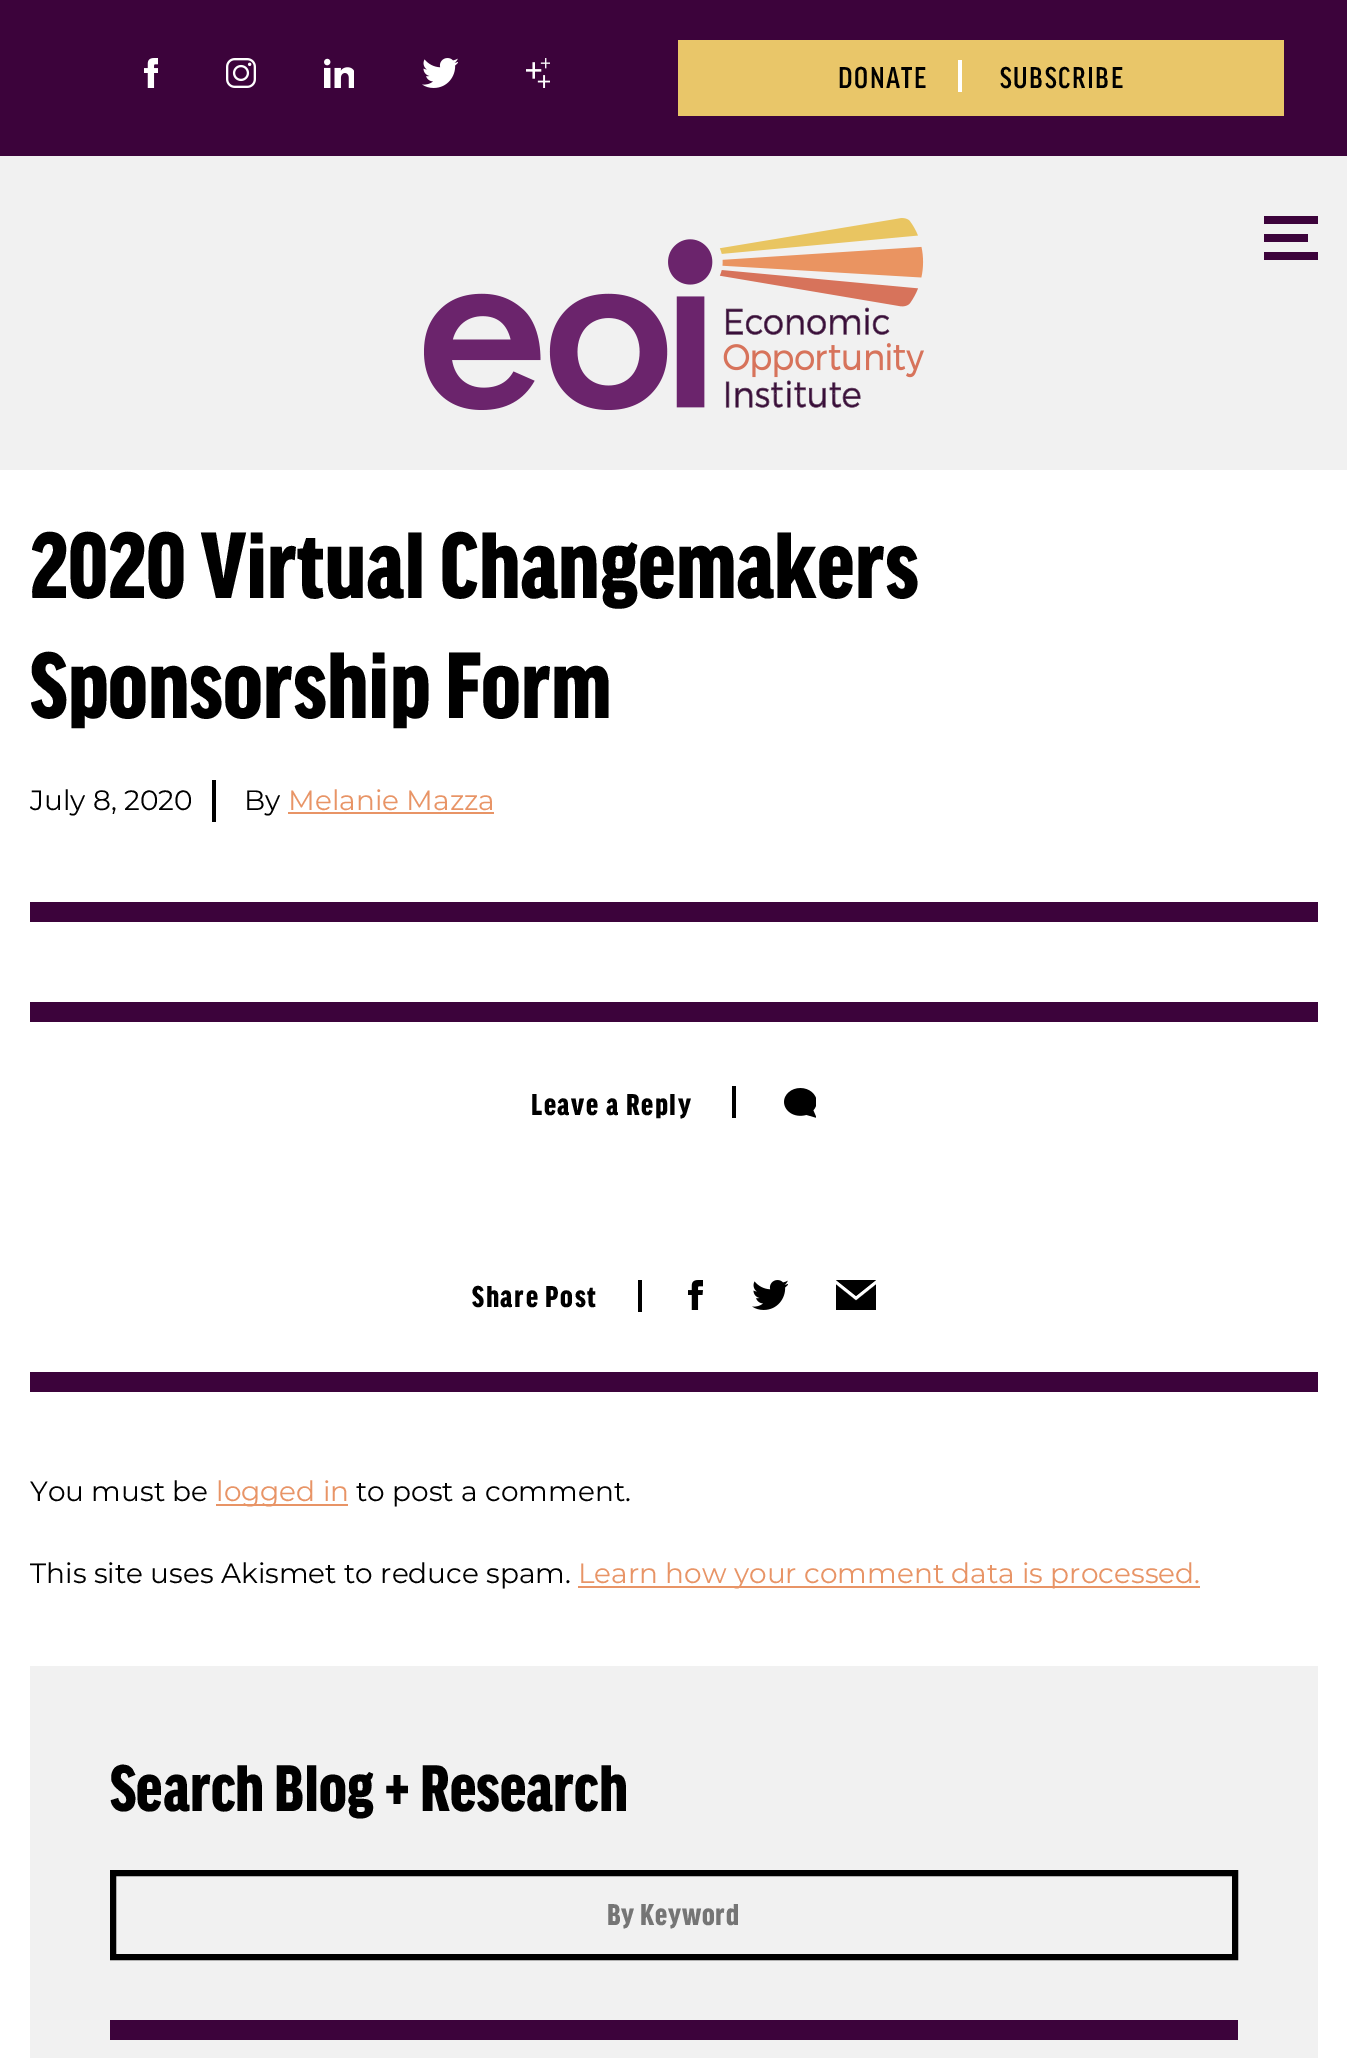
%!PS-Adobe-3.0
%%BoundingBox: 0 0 1347 2058
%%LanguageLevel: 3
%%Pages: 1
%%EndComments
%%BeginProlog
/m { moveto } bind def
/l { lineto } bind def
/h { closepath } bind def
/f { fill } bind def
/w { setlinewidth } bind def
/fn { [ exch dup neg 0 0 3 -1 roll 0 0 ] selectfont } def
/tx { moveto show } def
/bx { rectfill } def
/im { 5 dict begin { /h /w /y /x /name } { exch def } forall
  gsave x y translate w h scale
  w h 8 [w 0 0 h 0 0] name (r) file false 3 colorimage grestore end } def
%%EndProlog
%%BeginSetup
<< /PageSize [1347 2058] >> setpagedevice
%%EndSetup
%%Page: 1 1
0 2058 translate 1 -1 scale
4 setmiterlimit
1 setgray
0 0 1347 2058 bx
0.945 setgray
0 156 1347 314 bx
0.235 0.012 0.231 setrgbcolor
0 0 1347 156 bx
(image0.raw) 144 58 14 30 im
(image1.raw) 226 58 30 30 im
(image2.raw) 324 58 30 30 im
(image3.raw) 422 58 36 30 im
(image4.raw) 526 58 24 30 im
0.914 0.776 0.412 setrgbcolor
678 40 606 76 bx
1 setgray
958 60 4 32 bx
/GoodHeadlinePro-Medium 32 fn
0 setgray
838 88 m 1.6 0 (DONATE) ashow
1000 88 m 1.6 0 (SUBSCRIBE) ashow
0.235 0.012 0.231 setrgbcolor
1264 216 54 8 bx
1264 234 44 8 bx
1264 252 54 8 bx
(image5.raw) 424 218 500 192 im
/GoodHeadlinePro-Black 100 fn
0 setgray
(2020 Virtual Changemakers) 30 598 tx
(Sponsorship Form) 30 718 tx
212 780 4 42 bx
/Montserrat-Regular 28 fn
(July 8, 2020) 30 810 tx
(By) 244 810 tx
0.91 0.58 0.4 setrgbcolor
(Melanie Mazza) 288 810 tx
288 812 206 2 bx
0.235 0.012 0.231 setrgbcolor
30 902 1288 20 bx
30 1002 1288 20 bx
30 1372 1288 20 bx
0 setgray
732 1086 4 32 bx
/GoodHeadlinePro-Black 32 fn
531 1115 m 1.6 0 (Leave a Reply) ashow
(image6.raw) 784 1088 32 30 im
638 1280 4 32 bx
472 1307 m 1.6 0 (Share Post) ashow
(image7.raw) 688 1280 15 30 im
(image8.raw) 752 1280 36 30 im
856 1296 m 836 1280 l 876 1280 l h 856 1300.5 m 836 1284.5 l 836 1310 l 876 1310 l 876 1284.5 l h f
/Montserrat-Regular 28 fn
(You must be) 30 1501 tx
0.91 0.58 0.4 setrgbcolor
216 1504 132 2 bx
(logged in) 216 1501 tx
0 setgray
(to post a comment.) 356 1501 tx
(This site uses Akismet to reduce spam.) 30 1583 tx
0.91 0.58 0.4 setrgbcolor
578 1586 622 2 bx
(Learn how your comment data is processed.) 578 1583 tx
0.945 setgray
30 1666 1288 392 bx
0.235 0.012 0.231 setrgbcolor
110 2020 1128 20 bx
/GoodHeadlinePro-Black 70 fn
0 setgray
(Search Blog + Research) 110 1811 tx
6 w
113 1873 1122 84 rectstroke
/GoodHeadlinePro-Black 32 fn
0.459 setgray
607 1925 m 0.75 0 (By Keyword) ashow
showpage
%%EOF
